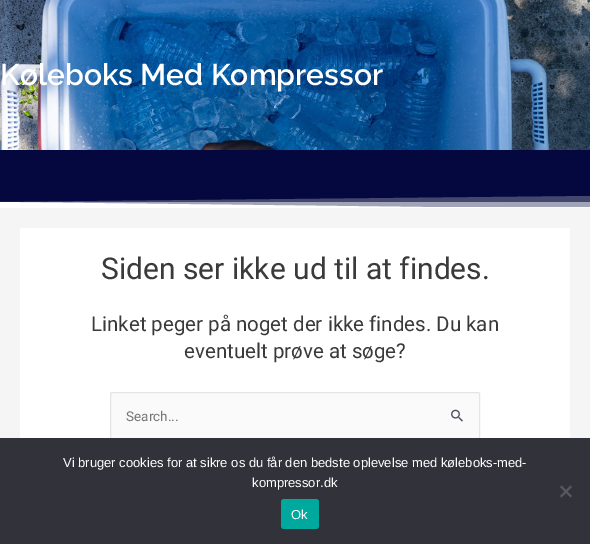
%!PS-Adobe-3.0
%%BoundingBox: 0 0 590 544
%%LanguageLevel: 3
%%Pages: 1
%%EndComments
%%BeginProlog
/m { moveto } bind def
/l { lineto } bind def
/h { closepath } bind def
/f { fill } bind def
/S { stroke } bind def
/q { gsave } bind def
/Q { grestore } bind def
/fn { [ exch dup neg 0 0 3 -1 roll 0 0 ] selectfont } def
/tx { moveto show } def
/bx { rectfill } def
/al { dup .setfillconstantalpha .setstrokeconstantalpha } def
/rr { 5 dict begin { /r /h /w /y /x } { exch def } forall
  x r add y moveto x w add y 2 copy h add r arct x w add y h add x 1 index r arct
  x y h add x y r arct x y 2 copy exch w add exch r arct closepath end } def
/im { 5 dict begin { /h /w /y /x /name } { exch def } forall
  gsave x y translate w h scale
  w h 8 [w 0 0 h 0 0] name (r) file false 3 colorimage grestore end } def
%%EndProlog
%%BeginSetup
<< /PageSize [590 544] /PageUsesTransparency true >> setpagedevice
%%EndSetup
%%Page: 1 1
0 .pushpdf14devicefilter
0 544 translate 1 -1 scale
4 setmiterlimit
0.961 setgray
0 0 590 544 bx
0.98 setgray
427 207 163 1 bx
(image0.raw) 0 0 590 150 im
/Raleway-SemiBold 30 fn
1 setgray
(Køleboks Med Kompressor) 0 85 tx
0.02 0.031 0.243 setrgbcolor
0 150 590 52 bx
0.51 0.518 0.624 setrgbcolor
0 202 590 5 bx
q
0 195 590 13 rectclip
1 setgray
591 209 m -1 209 l -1 202 l h f
0.25 al
-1 209 m 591 209 l 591 196 l -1 202 l h f
Q
1 setgray
20 228 550 210 bx
/Roboto-Regular 30 fn
0.227 setgray
(Siden ser ikke ud til at findes.) 101 279 tx
/Roboto-Regular 20.5 fn
(Linket peger på noget der ikke findes. Du kan) 91 331 tx
(eventuelt prøve at søge?) 184 358 tx
0.98 setgray
110.5 392.5 369 47 1.5 rr q f Q
0.898 setgray
S
/Roboto-Regular 13.5 fn
0.459 setgray
(Search...) 126 421 tx
(image1.raw) 451 409 12 13 im
0.196 0.196 0.227 setrgbcolor
0 438 590 106 bx
/LiberationSans-Regular 13 fn
1 setgray
(Vi bruger cookies for at sikre os du får den bedste oplevelse med køleboks-med-) 63 467 tx
(kompressor.dk) 252 487 tx
0.349 0.349 0.365 setrgbcolor
570.5 485.5 m 572 487 l 561.5 497.5 l 560 496 l h f
560 487 m 561.5 485.5 l 572 496 l 570.5 497.5 l h f
0 0.663 0.616 setrgbcolor
281 499 38 30 3 rr f
1 setgray
(Ok) 291 519 tx
.poppdf14devicefilter showpage
%%EOF
